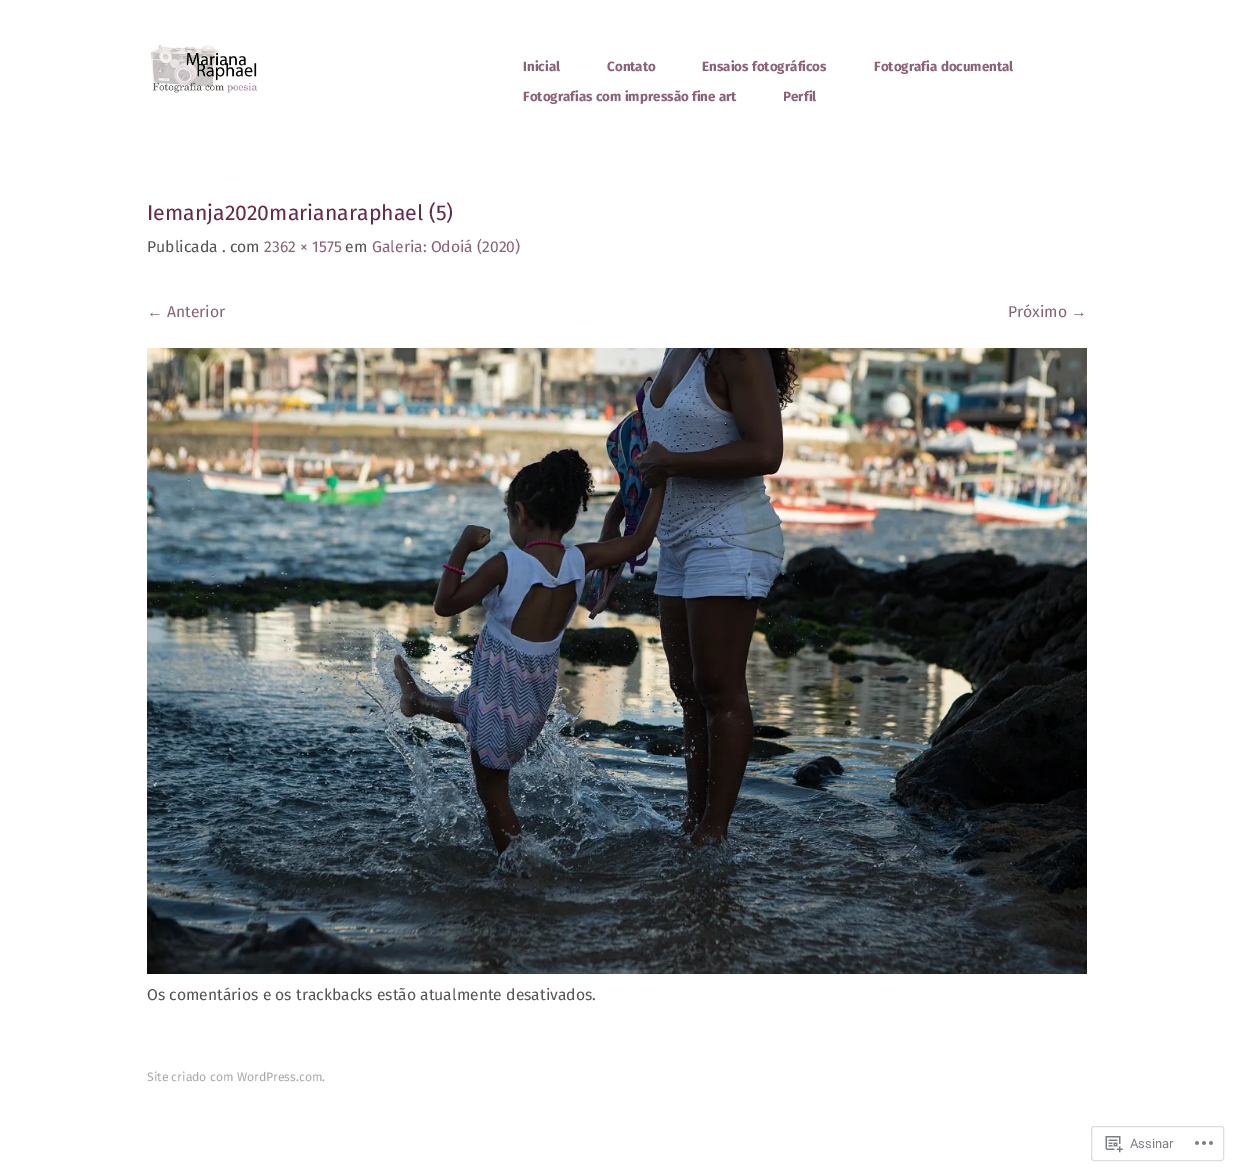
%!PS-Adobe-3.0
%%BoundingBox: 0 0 1234 1171
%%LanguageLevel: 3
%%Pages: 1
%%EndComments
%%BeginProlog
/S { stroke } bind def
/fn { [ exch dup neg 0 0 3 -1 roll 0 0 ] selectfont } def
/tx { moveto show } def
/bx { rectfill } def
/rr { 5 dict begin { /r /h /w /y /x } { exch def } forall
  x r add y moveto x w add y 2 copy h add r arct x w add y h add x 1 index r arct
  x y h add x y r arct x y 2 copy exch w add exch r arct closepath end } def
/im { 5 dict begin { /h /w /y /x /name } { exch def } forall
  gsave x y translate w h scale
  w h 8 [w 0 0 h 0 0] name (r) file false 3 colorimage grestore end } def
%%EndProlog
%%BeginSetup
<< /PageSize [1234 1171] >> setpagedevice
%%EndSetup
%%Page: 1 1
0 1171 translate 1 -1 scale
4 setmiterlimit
1 setgray
0 0 1234 1171 bx
(image0.raw) 151 44 106 49 im
/FiraSans-Bold 13.4 fn
0.557 0.38 0.467 setrgbcolor
(Inicial) 523 71 tx
(Contato) 607 71 tx
(Ensaios fotográficos) 702 71 tx
(Fotografia documental) 874 71 tx
(Fotografias com impressão fine art) 523 101 tx
(Perfil) 783 101 tx
/FiraSans-Regular 21.25 fn
0.42 0.157 0.282 setrgbcolor
(Iemanja2020marianaraphael \(5\)) 147 220 tx
/FiraSans-Regular 15.7 fn
0.333 setgray
(Publicada . com) 147 252 tx
0.557 0.38 0.467 setrgbcolor
(2362 × 1575) 264 252 tx
0.333 setgray
(em) 345 252 tx
0.557 0.38 0.467 setrgbcolor
(Galeria: Odoiá \(2020\)) 372 252 tx
/LiberationSans-Regular 15.7 fn
(←) 147 317 tx
/FiraSans-Regular 15.7 fn
(Anterior) 167 317 tx
(Próximo) 1008 317 tx
/LiberationSans-Regular 15.7 fn
(→) 1071 317 tx
(image1.raw) 147 348 940 626 im
/FiraSans-Regular 15.7 fn
0.333 setgray
(Os comentários e os trackbacks estão atualmente desativados.) 147 1000 tx
/FiraSans-Regular 12.25 fn
0.667 setgray
(Site criado com WordPress.com.) 147 1081 tx
0.867 0.867 0.875 setrgbcolor
1091.5 1126.5 132 34 2.5 rr S
(image2.raw) 1105 1136 18 17 im
/Roboto-Regular 13 fn
0.482 0.498 0.522 setrgbcolor
(Assinar) 1130 1148 tx
(image3.raw) 1195 1141 18 4 im
showpage
%%EOF
